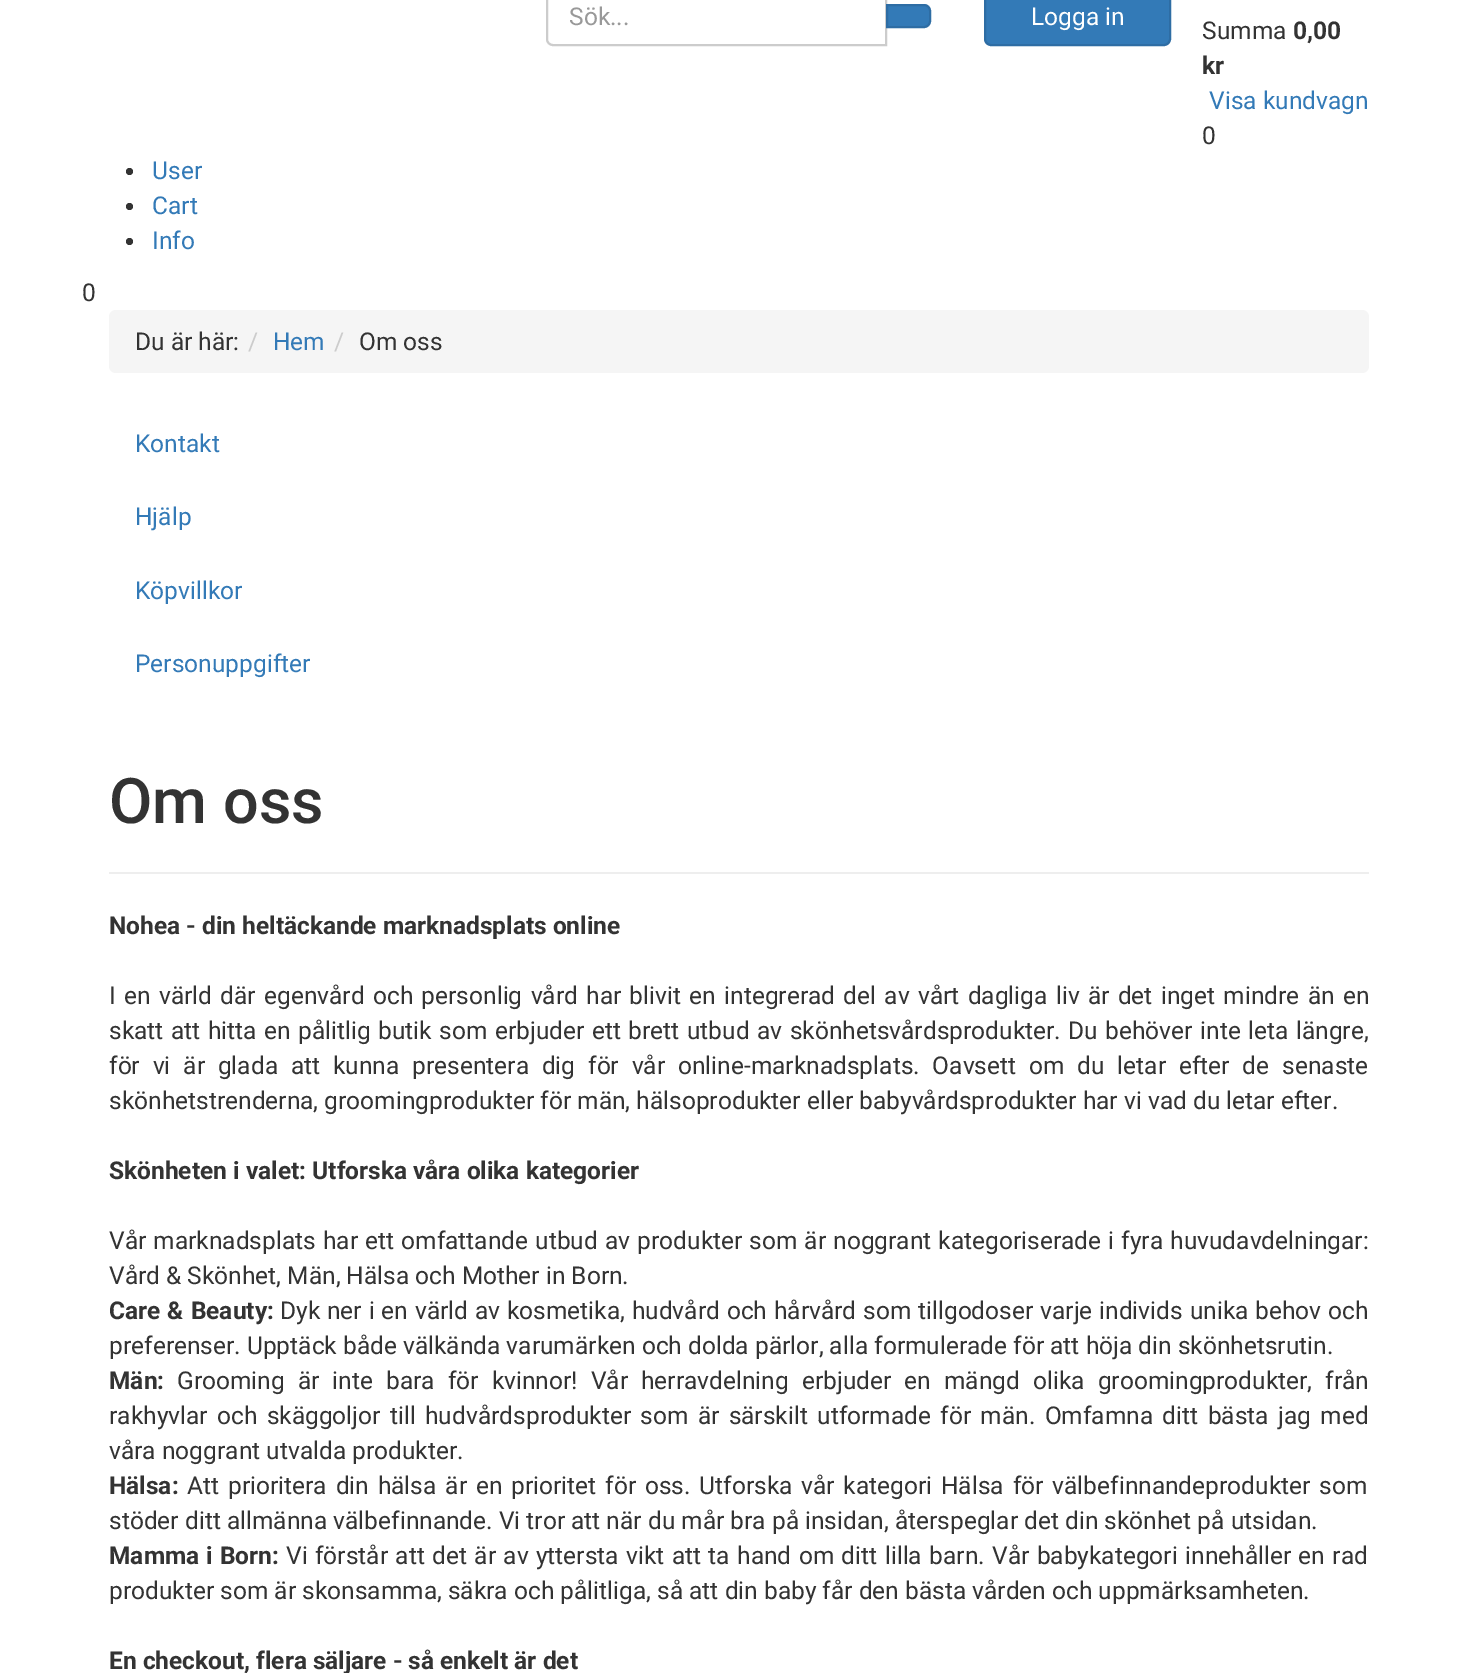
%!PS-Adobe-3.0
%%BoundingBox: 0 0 1477 1673
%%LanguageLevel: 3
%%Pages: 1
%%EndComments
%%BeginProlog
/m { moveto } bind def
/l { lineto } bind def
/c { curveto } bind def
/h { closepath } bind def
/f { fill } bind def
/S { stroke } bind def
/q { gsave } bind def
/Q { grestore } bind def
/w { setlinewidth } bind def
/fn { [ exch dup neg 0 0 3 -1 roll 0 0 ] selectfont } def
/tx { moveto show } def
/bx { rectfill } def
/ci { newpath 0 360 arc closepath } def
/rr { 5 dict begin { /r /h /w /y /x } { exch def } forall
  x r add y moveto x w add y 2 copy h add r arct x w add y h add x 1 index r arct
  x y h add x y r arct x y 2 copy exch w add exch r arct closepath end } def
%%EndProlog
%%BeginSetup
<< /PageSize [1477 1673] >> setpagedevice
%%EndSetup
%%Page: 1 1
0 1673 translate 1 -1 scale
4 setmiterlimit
1 setgray
0 0 1477 1673 bx
0.8 setgray
2 w
553 -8 m 886 -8 l 886 45 l 553 45 l 549.5 45 547 42.5 547 39 c 547 -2 l 547 -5.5 549.5 -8 553 -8 c h S
/Roboto-Regular 24.5 fn
0.6 setgray
(Sök...) 569 25 tx
0.2 0.478 0.718 setrgbcolor
887 5 m 924 5 l 927.5 5 930 7.5 930 11 c 930 21 l 930 24.5 927.5 27 924 27 c 887 27 l h q f Q
0.18 0.427 0.643 setrgbcolor
S
0.2 0.478 0.718 setrgbcolor
985 -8 185 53 6 rr q f Q
0.18 0.427 0.643 setrgbcolor
S
1 setgray
(Logga in) 1031 25 tx
0.2 setgray
(Summa) 1202 39 tx
/Roboto-Bold 24.5 fn
(0,00) 1293 39 tx
(kr) 1202 74 tx
/Roboto-Regular 24.5 fn
0.2 0.478 0.718 setrgbcolor
(Visa kundvagn) 1209 109 tx
0.2 setgray
(0) 1202 144 tx
129.5 171.5 3.5 ci f
0.2 0.478 0.718 setrgbcolor
(User) 152 179 tx
0.2 setgray
129.5 206.5 3.5 ci f
0.2 0.478 0.718 setrgbcolor
(Cart) 152 214 tx
0.2 setgray
129.5 241.5 3.5 ci f
0.2 0.478 0.718 setrgbcolor
(Info) 152 249 tx
0.2 setgray
(0) 82 301 tx
0.961 setgray
109 310 1260 63 7 rr f
0.2 setgray
(Du är här:) 135 350 tx
0.8 setgray
(/) 248 350 tx
0.2 0.478 0.718 setrgbcolor
(Hem) 273 350 tx
0.8 setgray
(/) 334 350 tx
0.2 setgray
(Om oss) 359 350 tx
0.2 0.478 0.718 setrgbcolor
(Kontakt) 135 452 tx
(Hjälp) 135 525 tx
(Köpvillkor) 135 599 tx
(Personuppgifter) 135 672 tx
0.933 setgray
109 872 1260 2 bx
/Roboto-Medium 63 fn
0.2 setgray
(Om oss) 109 823 tx
/Roboto-Bold 24.5 fn
(Nohea - din heltäckande marknadsplats online) 109 934 tx
/Roboto-Regular 24.5 fn
109 1004 m 2.2 0 32 (I en värld där egenvård och personlig vård har blivit en integrerad del av vårt dagliga liv är det inget mindre än en) widthshow
109 1039 m 1.4 0 32 (skatt att hitta en pålitlig butik som erbjuder ett brett utbud av skönhetsvårdsprodukter. Du behöver inte leta längre,) widthshow
109 1074 m 6.75 0 32 (för vi är glada att kunna presentera dig för vår online-marknadsplats. Oavsett om du letar efter de senaste) widthshow
(skönhetstrenderna, groomingprodukter för män, hälsoprodukter eller babyvårdsprodukter har vi vad du letar efter.) 109 1109 tx
/Roboto-Bold 24.5 fn
(Skönheten i valet: Utforska våra olika kategorier) 109 1179 tx
/Roboto-Regular 24.5 fn
109 1249 m 1 0 32 (Vår marknadsplats har ett omfattande utbud av produkter som är noggrant kategoriserade i fyra huvudavdelningar:) widthshow
(Vård & Skönhet, Män, Hälsa och Mother in Born.) 109 1284 tx
/Roboto-Bold 24.5 fn
109 1319 m 1 0 32 (Care & Beauty:) widthshow
/Roboto-Regular 24.5 fn
280 1319 m 0.75 0 32 (Dyk ner i en värld av kosmetika, hudvård och hårvård som tillgodoser varje individs unika behov och) widthshow
(preferenser. Upptäck både välkända varumärken och dolda pärlor, alla formulerade för att höja din skönhetsrutin.) 109 1354 tx
/Roboto-Bold 24.5 fn
(Män:) 109 1389 tx
/Roboto-Regular 24.5 fn
177 1389 m 7 0 32 (Grooming är inte bara för kvinnor! Vår herravdelning erbjuder en mängd olika groomingprodukter, från) widthshow
109 1424 m 3.25 0 32 (rakhyvlar och skäggoljor till hudvårdsprodukter som är särskilt utformade för män. Omfamna ditt bästa jag med) widthshow
(våra noggrant utvalda produkter.) 109 1459 tx
/Roboto-Bold 24.5 fn
(Hälsa:) 109 1494 tx
/Roboto-Regular 24.5 fn
187 1494 m 2.75 0 32 (Att prioritera din hälsa är en prioritet för oss. Utforska vår kategori Hälsa för välbefinnandeprodukter som) widthshow
(stöder ditt allmänna välbefinnande. Vi tror att när du mår bra på insidan, återspeglar det din skönhet på utsidan.) 109 1529 tx
/Roboto-Bold 24.5 fn
109 1564 m 1 0 32 (Mamma i Born:) widthshow
/Roboto-Regular 24.5 fn
286 1564 m 1.3 0 32 (Vi förstår att det är av yttersta vikt att ta hand om ditt lilla barn. Vår babykategori innehåller en rad) widthshow
(produkter som är skonsamma, säkra och pålitliga, så att din baby får den bästa vården och uppmärksamheten.) 109 1599 tx
/Roboto-Bold 24.5 fn
(En checkout, flera säljare - så enkelt är det) 109 1669 tx
showpage
%%EOF
